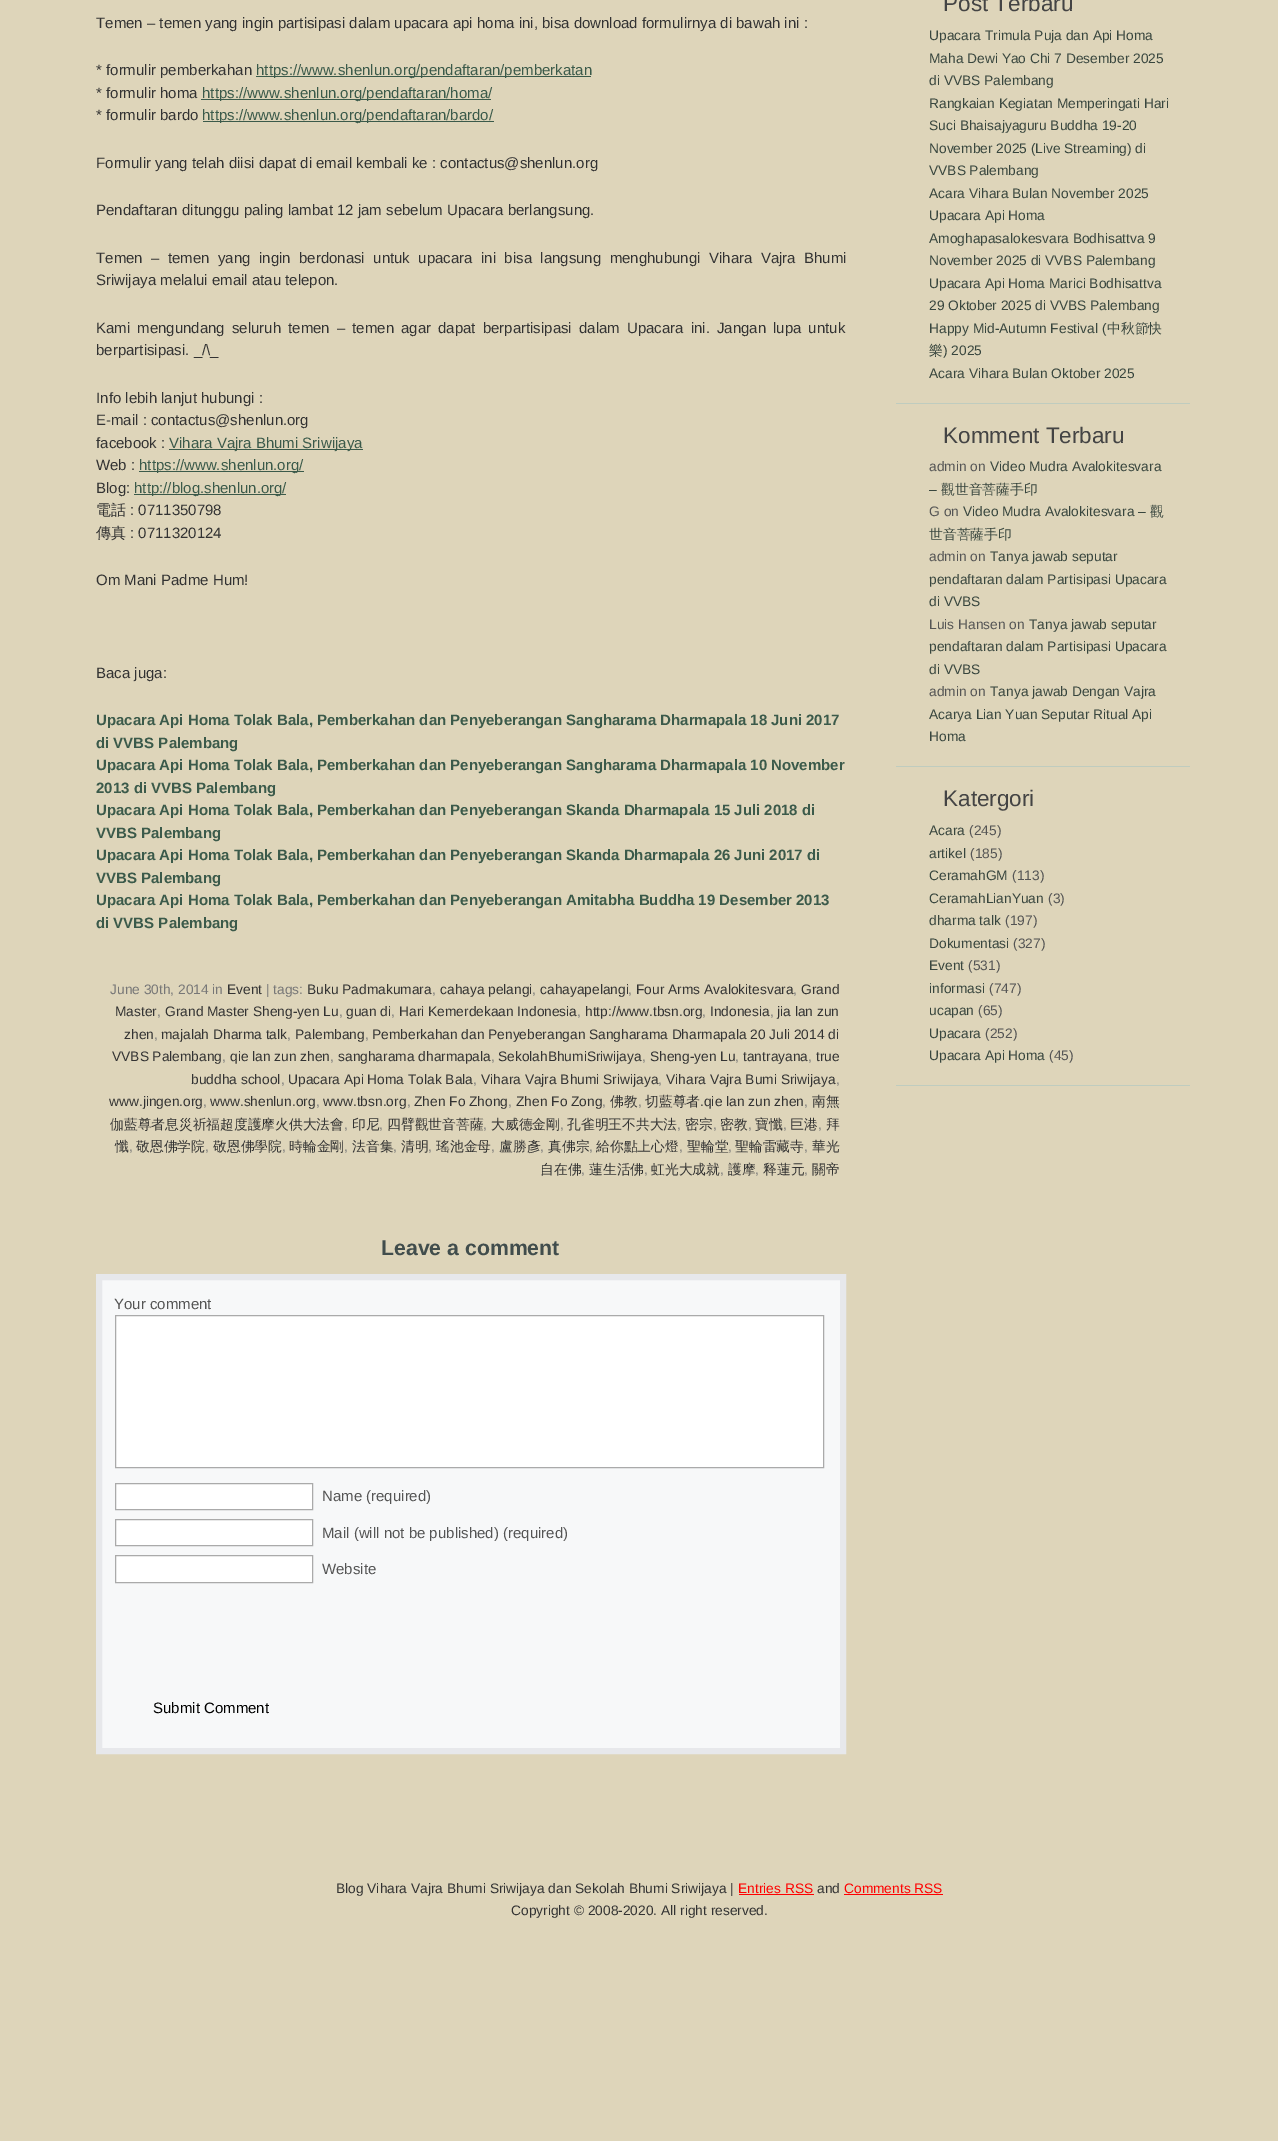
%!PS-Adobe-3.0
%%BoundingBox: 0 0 1278 2141
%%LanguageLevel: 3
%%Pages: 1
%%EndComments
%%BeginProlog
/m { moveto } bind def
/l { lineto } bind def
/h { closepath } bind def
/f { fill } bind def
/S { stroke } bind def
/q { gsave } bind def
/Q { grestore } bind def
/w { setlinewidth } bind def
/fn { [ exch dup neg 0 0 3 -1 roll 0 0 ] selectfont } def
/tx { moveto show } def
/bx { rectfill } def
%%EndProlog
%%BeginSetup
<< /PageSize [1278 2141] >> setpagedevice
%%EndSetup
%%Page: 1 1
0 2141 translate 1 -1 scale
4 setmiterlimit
0.871 0.835 0.729 setrgbcolor
0 0 1278 2141 bx
/LiberationSans-Regular 15 fn
0.2 setgray
(Temen – temen yang ingin partisipasi dalam upacara api homa ini, bisa download formulirnya di bawah ini :) 96 28 tx
(* formulir pemberkahan) 96 75 tx
0.231 0.353 0.29 setrgbcolor
256 76 335 1 bx
(https://www.shenlun.org/pendaftaran/pemberkatan) 256 75 tx
0.2 setgray
(* formulir homa) 96 98 tx
0.231 0.353 0.29 setrgbcolor
201 99 290 1 bx
(https://www.shenlun.org/pendaftaran/homa/) 202 98 tx
0.2 setgray
(* formulir bardo) 96 120 tx
0.231 0.353 0.29 setrgbcolor
203 121 291 1 bx
(https://www.shenlun.org/pendaftaran/bardo/) 202 120 tx
0.2 setgray
(Formulir yang telah diisi dapat di email kembali ke : contactus@shenlun.org) 96 168 tx
(Pendaftaran ditunggu paling lambat 12 jam sebelum Upacara berlangsung.) 96 215 tx
96 263 m 4.25 0 32 (Temen – temen yang ingin berdonasi untuk upacara ini bisa langsung menghubungi Vihara Vajra Bhumi) widthshow
(Sriwijaya melalui email atau telepon.) 96 285 tx
96 333 m 2.9 0 32 (Kami mengundang seluruh temen – temen agar dapat berpartisipasi dalam Upacara ini. Jangan lupa untuk) widthshow
(berpartisipasi. _/\\_) 96 355 tx
(Info lebih lanjut hubungi :) 96 403 tx
(E-mail : contactus@shenlun.org) 96 425 tx
(facebook :) 96 448 tx
0.231 0.353 0.29 setrgbcolor
169 449 194 1 bx
(Vihara Vajra Bhumi Sriwijaya) 169 448 tx
0.2 setgray
(Web :) 96 470 tx
0.231 0.353 0.29 setrgbcolor
139 471 165 1 bx
(https://www.shenlun.org/) 139 470 tx
0.2 setgray
(Blog:) 96 493 tx
0.231 0.353 0.29 setrgbcolor
134 494 152 1 bx
(http://blog.shenlun.org/) 134 493 tx
/WenQuanYiZenHei-Medium 15 fn
0.2 setgray
(電話) 96 515 tx
/LiberationSans-Regular 15 fn
(: 0711350798) 130 515 tx
/WenQuanYiZenHei-Medium 15 fn
(傳真) 96 538 tx
/LiberationSans-Regular 15 fn
(: 0711320124) 130 538 tx
(Om Mani Padme Hum!) 96 585 tx
(Baca juga:) 96 678 tx
/LiberationSans-Bold 15 fn
0.231 0.353 0.29 setrgbcolor
(Upacara Api Homa Tolak Bala, Pemberkahan dan Penyeberangan Sangharama Dharmapala 18 Juni 2017) 96 725 tx
(di VVBS Palembang) 96 748 tx
(Upacara Api Homa Tolak Bala, Pemberkahan dan Penyeberangan Sangharama Dharmapala 10 November) 96 770 tx
(2013 di VVBS Palembang) 96 793 tx
(Upacara Api Homa Tolak Bala, Pemberkahan dan Penyeberangan Skanda Dharmapala 15 Juli 2018 di) 96 815 tx
(VVBS Palembang) 96 838 tx
(Upacara Api Homa Tolak Bala, Pemberkahan dan Penyeberangan Skanda Dharmapala 26 Juni 2017 di) 96 860 tx
(VVBS Palembang) 96 883 tx
(Upacara Api Homa Tolak Bala, Pemberkahan dan Penyeberangan Amitabha Buddha 19 Desember 2013) 96 905 tx
(di VVBS Palembang) 96 928 tx
/LiberationSans-Regular 13.75 fn
0.467 setgray
(June 30th, 2014 in) 110 994 tx
0.2 setgray
(Event) 227 994 tx
0.467 setgray
(| tags:) 266 994 tx
0.2 setgray
(Buku Padmakumara) 307 994 tx
0.467 setgray
(,) 432 994 tx
0.2 setgray
(cahaya pelangi) 440 994 tx
0.467 setgray
(,) 532 994 tx
0.2 setgray
(cahayapelangi) 540 994 tx
0.467 setgray
(,) 628 994 tx
0.2 setgray
(Four Arms Avalokitesvara) 636 994 tx
0.467 setgray
(,) 793 994 tx
0.2 setgray
(Grand) 801 994 tx
(Master) 115 1016 tx
0.467 setgray
(,) 157 1016 tx
0.2 setgray
(Grand Master Sheng-yen Lu) 165 1016 tx
0.467 setgray
(,) 339 1016 tx
0.2 setgray
(guan di) 346 1016 tx
0.467 setgray
(,) 391 1016 tx
0.2 setgray
(Hari Kemerdekaan Indonesia) 399 1016 tx
0.467 setgray
(,) 577 1016 tx
0.2 setgray
(http://www.tbsn.org) 585 1016 tx
0.467 setgray
(,) 702 1016 tx
0.2 setgray
(Indonesia) 710 1016 tx
0.467 setgray
(,) 770 1016 tx
0.2 setgray
(jia lan zun) 777 1016 tx
(zhen) 124 1039 tx
0.467 setgray
(,) 154 1039 tx
0.2 setgray
(majalah Dharma talk) 161 1039 tx
0.467 setgray
(,) 287 1039 tx
0.2 setgray
(Palembang) 295 1039 tx
0.467 setgray
(,) 365 1039 tx
0.2 setgray
(Pemberkahan dan Penyeberangan Sangharama Dharmapala 20 Juli 2014 di) 372 1039 tx
(VVBS Palembang) 112 1061 tx
0.467 setgray
(,) 222 1061 tx
0.2 setgray
(qie lan zun zhen) 230 1061 tx
0.467 setgray
(,) 330 1061 tx
0.2 setgray
(sangharama dharmapala) 338 1061 tx
0.467 setgray
(,) 491 1061 tx
0.2 setgray
(SekolahBhumiSriwijaya) 498 1061 tx
0.467 setgray
(,) 642 1061 tx
0.2 setgray
(Sheng-yen Lu) 650 1061 tx
0.467 setgray
(,) 735 1061 tx
0.2 setgray
(tantrayana) 743 1061 tx
0.467 setgray
(,) 808 1061 tx
0.2 setgray
(true) 816 1061 tx
(buddha school) 191 1084 tx
0.467 setgray
(,) 281 1084 tx
0.2 setgray
(Upacara Api Homa Tolak Bala) 288 1084 tx
0.467 setgray
(,) 473 1084 tx
0.2 setgray
(Vihara Vajra Bhumi Sriwijaya) 481 1084 tx
0.467 setgray
(,) 658 1084 tx
0.2 setgray
(Vihara Vajra Bumi Sriwijaya) 666 1084 tx
0.467 setgray
(,) 836 1084 tx
0.2 setgray
(www.jingen.org) 109 1106 tx
0.467 setgray
(,) 203 1106 tx
0.2 setgray
(www.shenlun.org) 210 1106 tx
0.467 setgray
(,) 316 1106 tx
0.2 setgray
(www.tbsn.org) 323 1106 tx
0.467 setgray
(,) 407 1106 tx
0.2 setgray
(Zhen Fo Zhong) 414 1106 tx
0.467 setgray
(,) 508 1106 tx
0.2 setgray
(Zhen Fo Zong) 516 1106 tx
0.467 setgray
(,) 602 1106 tx
/WenQuanYiZenHei-Medium 13.75 fn
0.2 setgray
(佛教) 610 1106 tx
/LiberationSans-Regular 13.75 fn
0.467 setgray
(,) 638 1106 tx
/WenQuanYiZenHei-Medium 13.75 fn
0.2 setgray
(切藍尊者) 645 1106 tx
/LiberationSans-Regular 13.75 fn
(.qie lan zun zhen) 700 1106 tx
0.467 setgray
(,) 804 1106 tx
/WenQuanYiZenHei-Medium 13.75 fn
0.2 setgray
(南無) 812 1106 tx
(伽藍尊者息災祈福超度護摩火供大法會) 110 1129 tx
/LiberationSans-Regular 13.75 fn
0.467 setgray
(,) 344 1129 tx
/WenQuanYiZenHei-Medium 13.75 fn
0.2 setgray
(印尼) 352 1129 tx
/LiberationSans-Regular 13.75 fn
0.467 setgray
(,) 379 1129 tx
/WenQuanYiZenHei-Medium 13.75 fn
0.2 setgray
(四臂觀世音菩薩) 387 1129 tx
/LiberationSans-Regular 13.75 fn
0.467 setgray
(,) 483 1129 tx
/WenQuanYiZenHei-Medium 13.75 fn
0.2 setgray
(大威德金剛) 491 1129 tx
/LiberationSans-Regular 13.75 fn
0.467 setgray
(,) 560 1129 tx
/WenQuanYiZenHei-Medium 13.75 fn
0.2 setgray
(孔雀明王不共大法) 567 1129 tx
/LiberationSans-Regular 13.75 fn
0.467 setgray
(,) 677 1129 tx
/WenQuanYiZenHei-Medium 13.75 fn
0.2 setgray
(密宗) 685 1129 tx
/LiberationSans-Regular 13.75 fn
0.467 setgray
(,) 713 1129 tx
/WenQuanYiZenHei-Medium 13.75 fn
0.2 setgray
(密教) 720 1129 tx
/LiberationSans-Regular 13.75 fn
0.467 setgray
(,) 748 1129 tx
/WenQuanYiZenHei-Medium 13.75 fn
0.2 setgray
(寶懺) 755 1129 tx
/LiberationSans-Regular 13.75 fn
0.467 setgray
(,) 783 1129 tx
/WenQuanYiZenHei-Medium 13.75 fn
0.2 setgray
(巨港) 790 1129 tx
/LiberationSans-Regular 13.75 fn
0.467 setgray
(,) 818 1129 tx
/WenQuanYiZenHei-Medium 13.75 fn
0.2 setgray
(拜) 826 1129 tx
(懺) 115 1151 tx
/LiberationSans-Regular 13.75 fn
0.467 setgray
(,) 129 1151 tx
/WenQuanYiZenHei-Medium 13.75 fn
0.2 setgray
(敬恩佛学院) 136 1151 tx
/LiberationSans-Regular 13.75 fn
0.467 setgray
(,) 205 1151 tx
/WenQuanYiZenHei-Medium 13.75 fn
0.2 setgray
(敬恩佛學院) 213 1151 tx
/LiberationSans-Regular 13.75 fn
0.467 setgray
(,) 282 1151 tx
/WenQuanYiZenHei-Medium 13.75 fn
0.2 setgray
(時輪金剛) 289 1151 tx
/LiberationSans-Regular 13.75 fn
0.467 setgray
(,) 344 1151 tx
/WenQuanYiZenHei-Medium 13.75 fn
0.2 setgray
(法音集) 352 1151 tx
/LiberationSans-Regular 13.75 fn
0.467 setgray
(,) 393 1151 tx
/WenQuanYiZenHei-Medium 13.75 fn
0.2 setgray
(清明) 401 1151 tx
/LiberationSans-Regular 13.75 fn
0.467 setgray
(,) 428 1151 tx
/WenQuanYiZenHei-Medium 13.75 fn
0.2 setgray
(瑤池金母) 436 1151 tx
/LiberationSans-Regular 13.75 fn
0.467 setgray
(,) 491 1151 tx
/WenQuanYiZenHei-Medium 13.75 fn
0.2 setgray
(盧勝彥) 499 1151 tx
/LiberationSans-Regular 13.75 fn
0.467 setgray
(,) 540 1151 tx
/WenQuanYiZenHei-Medium 13.75 fn
0.2 setgray
(真佛宗) 548 1151 tx
/LiberationSans-Regular 13.75 fn
0.467 setgray
(,) 589 1151 tx
/WenQuanYiZenHei-Medium 13.75 fn
0.2 setgray
(給你點上心燈) 596 1151 tx
/LiberationSans-Regular 13.75 fn
0.467 setgray
(,) 679 1151 tx
/WenQuanYiZenHei-Medium 13.75 fn
0.2 setgray
(聖輪堂) 687 1151 tx
/LiberationSans-Regular 13.75 fn
0.467 setgray
(,) 728 1151 tx
/WenQuanYiZenHei-Medium 13.75 fn
0.2 setgray
(聖輪雷藏寺) 735 1151 tx
/LiberationSans-Regular 13.75 fn
0.467 setgray
(,) 804 1151 tx
/WenQuanYiZenHei-Medium 13.75 fn
0.2 setgray
(華光) 812 1151 tx
(自在佛) 540 1174 tx
/LiberationSans-Regular 13.75 fn
0.467 setgray
(,) 581 1174 tx
/WenQuanYiZenHei-Medium 13.75 fn
0.2 setgray
(蓮生活佛) 589 1174 tx
/LiberationSans-Regular 13.75 fn
0.467 setgray
(,) 644 1174 tx
/WenQuanYiZenHei-Medium 13.75 fn
0.2 setgray
(虹光大成就) 651 1174 tx
/LiberationSans-Regular 13.75 fn
0.467 setgray
(,) 720 1174 tx
/WenQuanYiZenHei-Medium 13.75 fn
0.2 setgray
(護摩) 728 1174 tx
/LiberationSans-Regular 13.75 fn
0.467 setgray
(,) 755 1174 tx
/WenQuanYiZenHei-Medium 13.75 fn
0.2 setgray
(释蓮元) 763 1174 tx
/LiberationSans-Regular 13.75 fn
0.467 setgray
(,) 804 1174 tx
/WenQuanYiZenHei-Medium 13.75 fn
0.2 setgray
(關帝) 812 1174 tx
/LiberationSans-Bold 21.25 fn
0.255 0.302 0.298 setrgbcolor
(Leave a comment) 381 1255 tx
0.969 0.973 0.976 setrgbcolor
99 1277 m 843 1277 l 843 1751 l 99 1751 l h q f Q
0.906 0.91 0.922 setrgbcolor
6 w
S
/LiberationSans-Regular 15 fn
0.333 setgray
(Your comment) 114 1309 tx
1 setgray
115.5 1315.5 m 823.5 1315.5 l 823.5 1467.5 l 115.5 1467.5 l h q f Q
0.667 setgray
1 w
S
1 setgray
115.5 1483.5 m 312.5 1483.5 l 312.5 1509.5 l 115.5 1509.5 l h q f Q
0.667 setgray
S
0.333 setgray
(Name \(required\)) 322 1501 tx
1 setgray
115.5 1519.5 m 312.5 1519.5 l 312.5 1545.5 l 115.5 1545.5 l h q f Q
0.667 setgray
S
0.333 setgray
(Mail \(will not be published\) \(required\)) 322 1538 tx
1 setgray
115.5 1555.5 m 312.5 1555.5 l 312.5 1582.5 l 115.5 1582.5 l h q f Q
0.667 setgray
S
0.333 setgray
(Website) 322 1574 tx
0 setgray
(Submit Comment) 153 1713 tx
0.749 0.8 0.749 setrgbcolor
896 403 294 1 bx
/LiberationSans-Regular 22.5 fn
0.267 setgray
(Post Terbaru) 943 11 tx
/LiberationSans-Regular 13.75 fn
0.22 0.275 0.243 setrgbcolor
(Upacara Trimula Puja dan Api Homa) 929 40 tx
(Maha Dewi Yao Chi 7 Desember 2025) 929 63 tx
(di VVBS Palembang) 929 85 tx
(Rangkaian Kegiatan Memperingati Hari) 929 108 tx
(Suci Bhaisajyaguru Buddha 19-20) 929 130 tx
(November 2025 \(Live Streaming\) di) 929 153 tx
(VVBS Palembang) 929 175 tx
(Acara Vihara Bulan November 2025) 929 198 tx
(Upacara Api Homa) 929 220 tx
(Amoghapasalokesvara Bodhisattva 9) 929 243 tx
(November 2025 di VVBS Palembang) 929 265 tx
(Upacara Api Homa Marici Bodhisattva) 929 288 tx
(29 Oktober 2025 di VVBS Palembang) 929 310 tx
(Happy Mid-Autumn Festival \() 929 333 tx
/WenQuanYiZenHei-Medium 13.75 fn
(中秋節快) 1107 333 tx
(樂) 929 355 tx
/LiberationSans-Regular 13.75 fn
(\) 2025) 943 355 tx
(Acara Vihara Bulan Oktober 2025) 929 378 tx
0.749 0.8 0.749 setrgbcolor
896 766 294 1 bx
/LiberationSans-Regular 22.5 fn
0.267 setgray
(Komment Terbaru) 943 443 tx
/LiberationSans-Regular 13.75 fn
0.333 setgray
(admin on) 929 471 tx
0.22 0.275 0.243 setrgbcolor
(Video Mudra Avalokitesvara) 990 471 tx
(–) 929 494 tx
/WenQuanYiZenHei-Medium 13.75 fn
(觀世音菩薩手印) 941 494 tx
/LiberationSans-Regular 13.75 fn
0.333 setgray
(G on) 929 516 tx
0.22 0.275 0.243 setrgbcolor
(Video Mudra Avalokitesvara –) 963 516 tx
/WenQuanYiZenHei-Medium 13.75 fn
(觀) 1150 516 tx
(世音菩薩手印) 929 539 tx
/LiberationSans-Regular 13.75 fn
0.333 setgray
(admin on) 929 561 tx
0.22 0.275 0.243 setrgbcolor
(Tanya jawab seputar) 990 561 tx
(pendaftaran dalam Partisipasi Upacara) 929 584 tx
(di VVBS) 929 606 tx
0.333 setgray
(Luis Hansen on) 929 629 tx
0.22 0.275 0.243 setrgbcolor
(Tanya jawab seputar) 1029 629 tx
(pendaftaran dalam Partisipasi Upacara) 929 651 tx
(di VVBS) 929 674 tx
0.333 setgray
(admin on) 929 696 tx
0.22 0.275 0.243 setrgbcolor
(Tanya jawab Dengan Vajra) 990 696 tx
(Acarya Lian Yuan Seputar Ritual Api) 929 719 tx
(Homa) 929 741 tx
0.749 0.8 0.749 setrgbcolor
896 1085 294 1 bx
/LiberationSans-Regular 22.5 fn
0.267 setgray
(Katergori) 943 806 tx
/LiberationSans-Regular 13.75 fn
0.22 0.275 0.243 setrgbcolor
(Acara) 929 835 tx
0.333 setgray
(\(245\)) 969 835 tx
0.22 0.275 0.243 setrgbcolor
(artikel) 929 858 tx
0.333 setgray
(\(185\)) 970 858 tx
0.22 0.275 0.243 setrgbcolor
(CeramahGM) 929 880 tx
0.333 setgray
(\(113\)) 1012 880 tx
0.22 0.275 0.243 setrgbcolor
(CeramahLianYuan) 929 903 tx
0.333 setgray
(\(3\)) 1048 903 tx
0.22 0.275 0.243 setrgbcolor
(dharma talk) 929 925 tx
0.333 setgray
(\(197\)) 1005 925 tx
0.22 0.275 0.243 setrgbcolor
(Dokumentasi) 929 948 tx
0.333 setgray
(\(327\)) 1013 948 tx
0.22 0.275 0.243 setrgbcolor
(Event) 929 970 tx
0.333 setgray
(\(531\)) 968 970 tx
0.22 0.275 0.243 setrgbcolor
(informasi) 929 993 tx
0.333 setgray
(\(747\)) 989 993 tx
0.22 0.275 0.243 setrgbcolor
(ucapan) 929 1015 tx
0.333 setgray
(\(65\)) 978 1015 tx
0.22 0.275 0.243 setrgbcolor
(Upacara) 929 1038 tx
0.333 setgray
(\(252\)) 985 1038 tx
0.22 0.275 0.243 setrgbcolor
(Upacara Api Homa) 929 1060 tx
0.333 setgray
(\(45\)) 1049 1060 tx
0.2 setgray
(Blog Vihara Vajra Bhumi Sriwijaya dan Sekolah Bhumi Sriwijaya |) 336 1893 tx
1 0 0 setrgbcolor
(Entries RSS) 738 1893 tx
739 1894 75 1 bx
0.2 setgray
(and) 817 1893 tx
1 0 0 setrgbcolor
(Comments RSS) 844 1893 tx
844 1894 99 1 bx
0.2 setgray
(Copyright © 2008-2020. All right reserved.) 511 1915 tx
showpage
%%EOF
